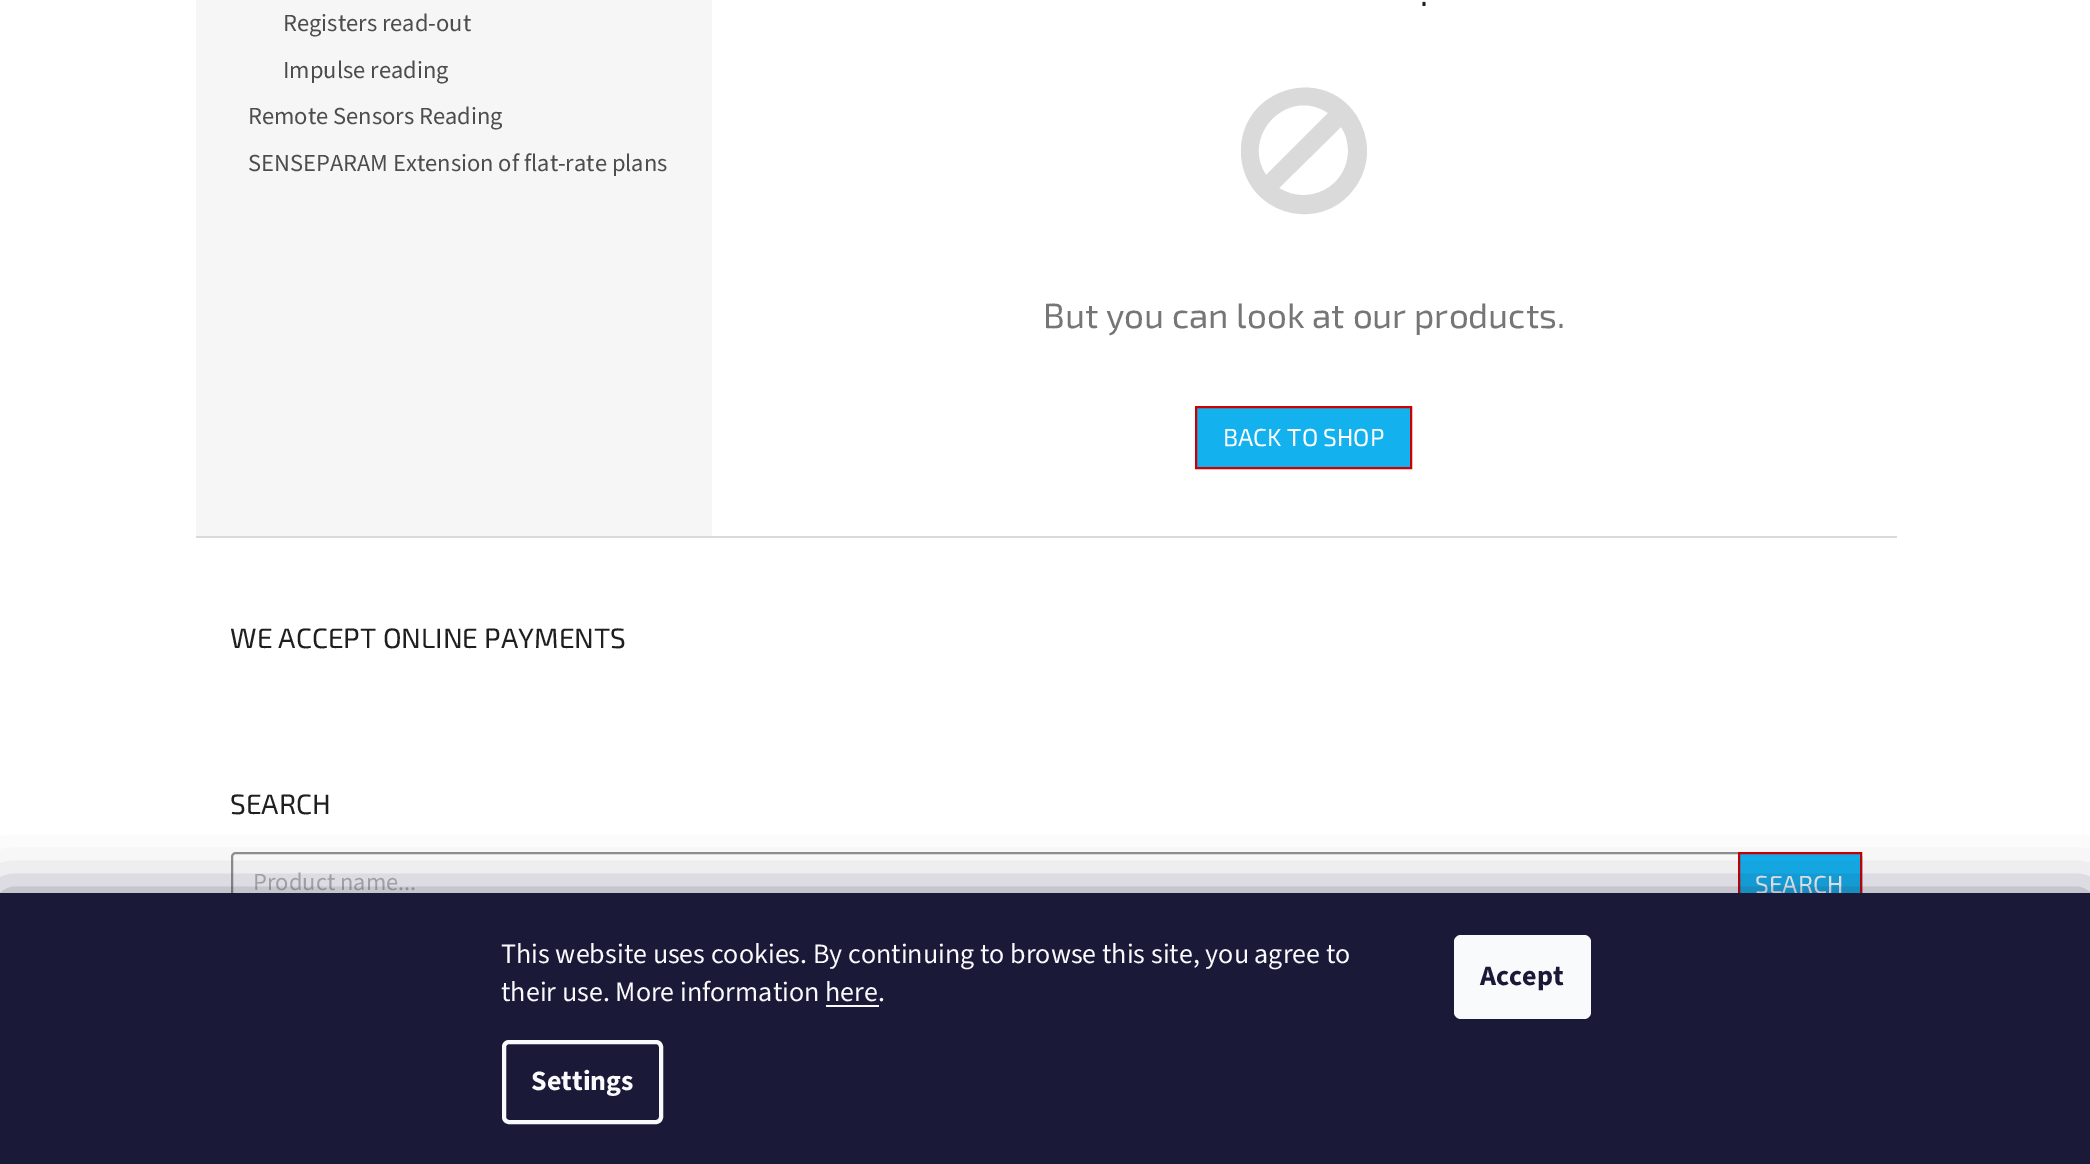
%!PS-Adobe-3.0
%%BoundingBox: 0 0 2090 1164
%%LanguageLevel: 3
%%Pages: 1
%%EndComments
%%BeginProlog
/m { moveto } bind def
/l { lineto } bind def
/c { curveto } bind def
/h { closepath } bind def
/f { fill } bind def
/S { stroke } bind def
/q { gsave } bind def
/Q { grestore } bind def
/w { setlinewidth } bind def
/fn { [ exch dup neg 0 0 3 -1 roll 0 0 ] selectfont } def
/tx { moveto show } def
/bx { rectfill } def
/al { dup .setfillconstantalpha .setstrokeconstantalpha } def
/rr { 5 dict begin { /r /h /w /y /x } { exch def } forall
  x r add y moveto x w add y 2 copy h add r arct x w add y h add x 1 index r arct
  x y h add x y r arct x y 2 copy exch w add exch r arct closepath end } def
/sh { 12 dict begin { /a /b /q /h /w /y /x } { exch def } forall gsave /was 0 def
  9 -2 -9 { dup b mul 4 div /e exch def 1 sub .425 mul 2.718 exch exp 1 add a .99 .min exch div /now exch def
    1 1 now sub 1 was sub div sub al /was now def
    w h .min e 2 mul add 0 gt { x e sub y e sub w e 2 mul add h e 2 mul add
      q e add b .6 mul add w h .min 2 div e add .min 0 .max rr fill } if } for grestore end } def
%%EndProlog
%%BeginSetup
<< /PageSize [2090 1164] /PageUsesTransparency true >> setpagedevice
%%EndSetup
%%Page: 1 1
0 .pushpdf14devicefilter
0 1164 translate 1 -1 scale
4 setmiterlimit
1 setgray
0 0 2090 1164 bx
0.965 setgray
196 0 516 536 bx
/SourceSans3-Regular 24.5 fn
0.302 setgray
(Registers read-out) 283 31 tx
(Impulse reading) 283 78 tx
(Remote Sensors Reading) 248 124 tx
(SENSEPARAM Extension of flat-rate plans) 248 171 tx
/Exo2-Regular 35 fn
0.122 setgray
(.) 1420 6 tx
0.855 setgray
1348 151 m 1348 142 1346 134 1341 127 c 1279 188 l 1309 207 1348 186 1348 151 c h 1266 175 m 1328 113 l 1288 86 1240 135 1266 175 c h 1367 151 m 1367 163 1363 176 1356 186 c 1321 238 1241 213 1241 151 c 1241 89 1322 64 1356 115 c 1363 126 1367 138 1367 151 c h f
0.463 setgray
(But you can look at our products.) 1043 328 tx
0.078 0.694 0.937 setrgbcolor
1196 407 m 1411 407 l 1411 468 l 1196 468 l h q f Q
0.796 0 0 setrgbcolor
2 w
S
/Exo2-Regular 24.5 fn
1 setgray
(BACK TO SHOP) 1223 446 tx
0.855 setgray
196 536 1701 2 bx
/Exo2-Regular 28 fn
0.122 setgray
(WE ACCEPT ONLINE PAYMENTS) 230 648 tx
(SEARCH) 230 814 tx
0.569 setgray
232 853 1629 61 4 rr S
/SourceSans3-Regular 24.5 fn
0.714 setgray
(Product name...) 253 890 tx
0.078 0.694 0.937 setrgbcolor
1740 854 120 39 bx
0.796 0 0 setrgbcolor
1739 853 122 61 rectstroke
/Exo2-Regular 24.5 fn
1 setgray
(SEARCH) 1755 893 tx
0.106 0.098 0.224 setrgbcolor
0 893 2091 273 0 26 0.5 sh
0.102 0.098 0.216 setrgbcolor
0 893 2090 271 bx
/SourceSans3-Regular 28 fn
0.973 0.98 0.984 setrgbcolor
(This website uses cookies. By continuing to browse this site, you agree to) 501 963 tx
(their use. More information here.) 501 1001 tx
826 1005 53 2 bx
4 w
504 1042 157 80 5 rr S
/SourceSans3-Bold 28 fn
(Settings) 531 1090 tx
1454 935 137 84 7 rr f
0.102 0.098 0.216 setrgbcolor
(Accept) 1480 985 tx
.poppdf14devicefilter showpage
%%EOF
